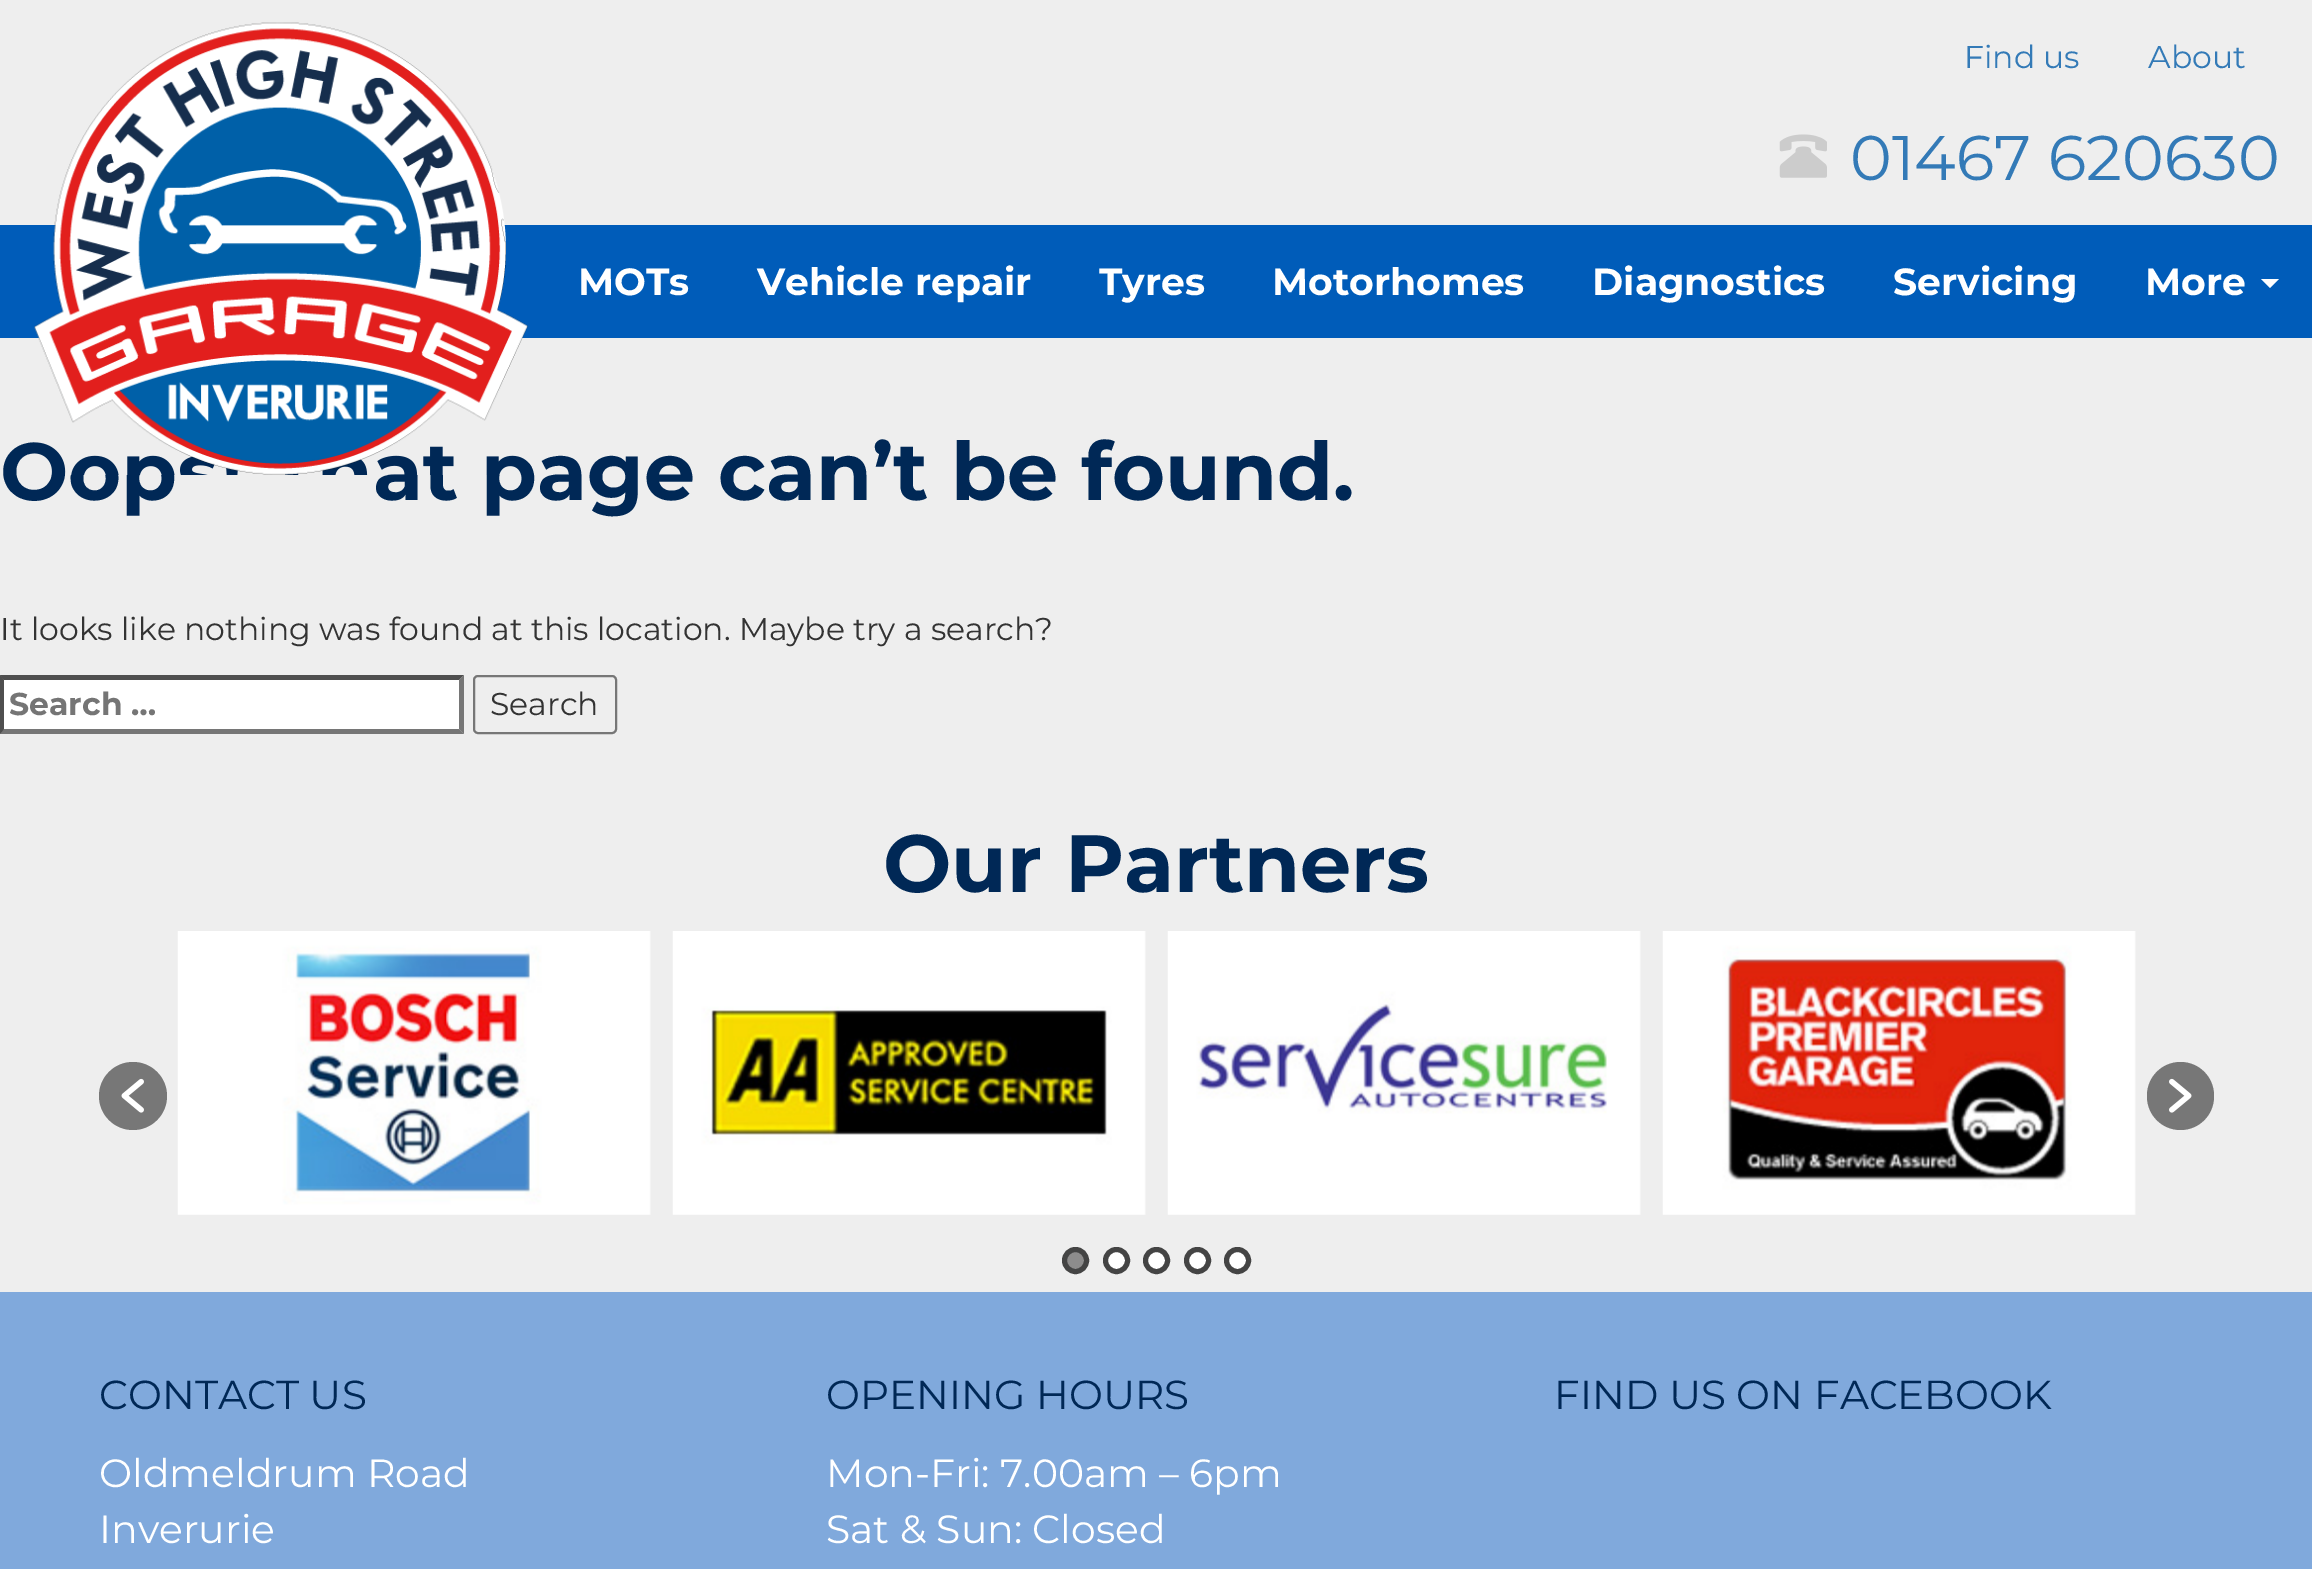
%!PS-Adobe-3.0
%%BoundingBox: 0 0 2312 1569
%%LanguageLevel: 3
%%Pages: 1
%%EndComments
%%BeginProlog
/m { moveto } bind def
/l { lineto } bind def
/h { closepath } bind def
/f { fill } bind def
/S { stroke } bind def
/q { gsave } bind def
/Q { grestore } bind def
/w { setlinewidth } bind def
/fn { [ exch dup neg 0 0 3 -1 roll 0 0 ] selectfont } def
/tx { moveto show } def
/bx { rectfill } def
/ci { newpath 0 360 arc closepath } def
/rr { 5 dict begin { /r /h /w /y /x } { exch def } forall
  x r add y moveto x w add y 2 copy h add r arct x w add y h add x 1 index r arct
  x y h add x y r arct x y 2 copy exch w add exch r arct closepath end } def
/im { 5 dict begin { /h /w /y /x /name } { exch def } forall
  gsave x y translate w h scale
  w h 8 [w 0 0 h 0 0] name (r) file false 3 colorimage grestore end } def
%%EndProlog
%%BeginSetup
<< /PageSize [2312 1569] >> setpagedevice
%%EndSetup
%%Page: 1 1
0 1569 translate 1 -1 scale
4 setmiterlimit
0.933 setgray
0 0 2312 1569 bx
0 0.361 0.725 setrgbcolor
0 225 2312 113 bx
/Montserrat-Bold 81 fn
0 0.157 0.337 setrgbcolor
(Oop) 0 500 tx
(at page can’t be found.) 373 500 tx
(image0.raw) 34 22 494 453 im
/Montserrat-Regular 31.5 fn
0.2 0.478 0.718 setrgbcolor
(Find us) 1964 68 tx
(About) 2148 68 tx
(image1.raw) 1779 134 48 44 im
/Montserrat-Regular 63 fn
(01467 620630) 1850 180 tx
/Montserrat-Bold 37.75 fn
1 setgray
(MOTs) 578 295 tx
(Vehicle repair) 757 295 tx
(Tyres) 1099 295 tx
(Motorhomes) 1272 295 tx
(Diagnostics) 1592 295 tx
(Servicing) 1893 295 tx
(More) 2145 295 tx
2261 279 m 2279 279 l 2270 288 l h f
/Montserrat-Regular 31.5 fn
0.2 setgray
(It looks like nothing was found at this location. Maybe try a search?) 0 640 tx
1 setgray
0 675 464 59 bx
0.31 setgray
0 675 m 464 675 l 459 680 l 4 680 l h f
0.463 setgray
464 675 m 464 734 l 459 729 l 459 680 l h f
464 734 m 0 734 l 4 729 l 459 729 l h f
0.31 setgray
0 734 m 0 675 l 4 680 l 4 729 l h f
/Montserrat-Bold 31.5 fn
0.459 setgray
(Search …) 9 715 tx
0.463 setgray
2 w
474 676 142 57 4 rr S
/Montserrat-Regular 31.5 fn
0.2 setgray
(Search) 490 715 tx
/Montserrat-Bold 81 fn
0 0.157 0.337 setrgbcolor
(Our Partners) 883 892 tx
0.467 setgray
133 1096 34 ci f
(image2.raw) 121 1078 23 35 im
(image3.raw) 177 931 474 284 im
(image4.raw) 672 931 474 284 im
(image5.raw) 1167 931 474 284 im
(image6.raw) 1662 931 474 284 im
2147 1062 67 68 33.5 rr f
(image7.raw) 2169 1078 23 35 im
0.553 0.549 0.549 setrgbcolor
1075.5 1260.5 11 ci q f Q
0.267 setgray
5 w
S
1 setgray
1116.5 1260.5 11 ci q f Q
0.267 setgray
S
1 setgray
1156.5 1260.5 11 ci q f Q
0.267 setgray
S
1 setgray
1197.5 1260.5 11 ci q f Q
0.267 setgray
S
1 setgray
1237.5 1260.5 11 ci q f Q
0.267 setgray
S
0.502 0.663 0.863 setrgbcolor
0 1292 2312 277 bx
/Montserrat-Regular 40.5 fn
0 0.157 0.337 setrgbcolor
(CONTACT US) 99 1409 tx
/Montserrat-Regular 39.4 fn
1 setgray
(Oldmeldrum Road) 99 1487 tx
(Inverurie) 99 1543 tx
/Montserrat-Regular 40.5 fn
0 0.157 0.337 setrgbcolor
(OPENING HOURS) 826 1409 tx
/Montserrat-Regular 39.4 fn
1 setgray
(Mon-Fri: 7.00am – 6pm) 826 1487 tx
(Sat & Sun: Closed) 826 1543 tx
/Montserrat-Regular 40.5 fn
0 0.157 0.337 setrgbcolor
(FIND US ON FACEBOOK) 1554 1409 tx
showpage
%%EOF
